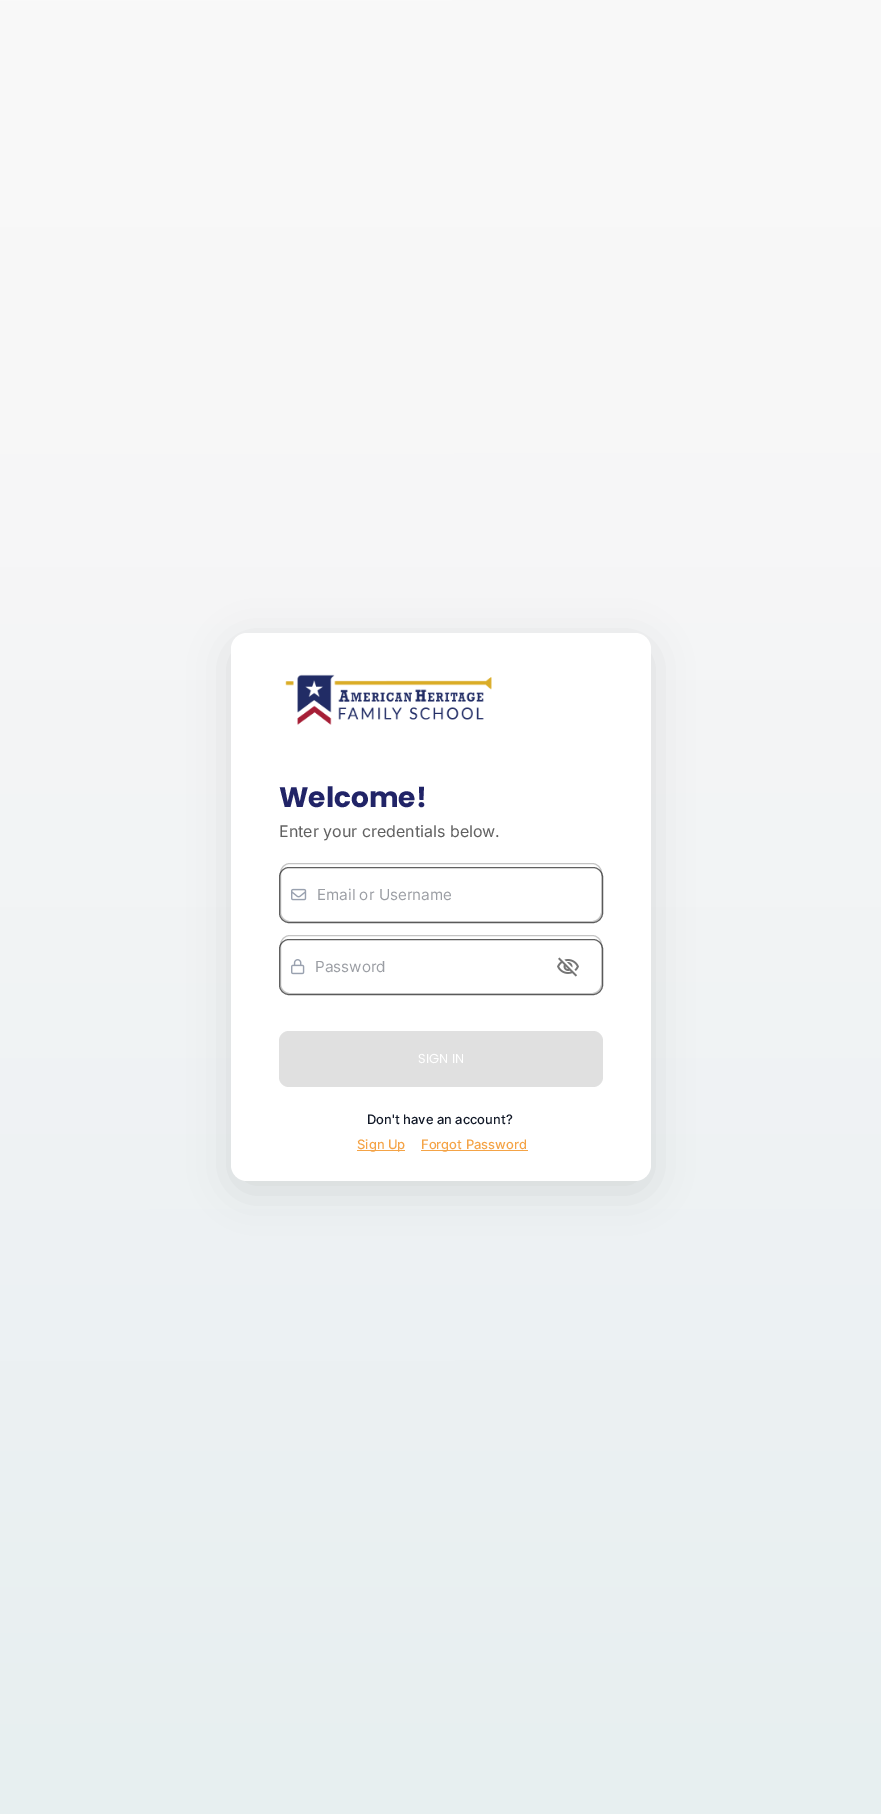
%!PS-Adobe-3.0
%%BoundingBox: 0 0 881 1814
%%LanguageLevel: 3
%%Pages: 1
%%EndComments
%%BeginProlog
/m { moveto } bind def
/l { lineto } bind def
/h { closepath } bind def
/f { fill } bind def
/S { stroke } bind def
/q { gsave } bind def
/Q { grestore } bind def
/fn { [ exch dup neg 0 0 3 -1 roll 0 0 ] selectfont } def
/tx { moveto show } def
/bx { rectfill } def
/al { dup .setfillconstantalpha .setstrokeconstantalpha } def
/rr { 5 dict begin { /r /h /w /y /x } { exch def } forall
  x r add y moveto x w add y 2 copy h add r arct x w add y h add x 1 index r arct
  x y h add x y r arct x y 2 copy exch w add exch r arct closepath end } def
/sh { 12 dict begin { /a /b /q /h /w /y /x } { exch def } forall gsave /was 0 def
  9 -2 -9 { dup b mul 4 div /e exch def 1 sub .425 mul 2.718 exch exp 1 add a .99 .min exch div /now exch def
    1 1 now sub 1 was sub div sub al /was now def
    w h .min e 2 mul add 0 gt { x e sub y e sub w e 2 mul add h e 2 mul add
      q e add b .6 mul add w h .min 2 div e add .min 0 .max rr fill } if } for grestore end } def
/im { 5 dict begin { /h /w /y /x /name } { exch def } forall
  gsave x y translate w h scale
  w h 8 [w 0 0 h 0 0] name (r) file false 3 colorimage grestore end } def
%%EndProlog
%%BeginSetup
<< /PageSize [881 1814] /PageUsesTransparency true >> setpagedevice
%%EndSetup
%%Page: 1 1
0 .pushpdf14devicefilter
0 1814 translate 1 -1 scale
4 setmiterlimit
1 setgray
0 0 881 1814 bx
q 0 0 m 881 0 l 881 1814 l 0 1814 l h clip newpath
<< /ShadingType 2 /ColorSpace /DeviceRGB /Coords [440 0 441 1814] /Extend [true true] /Function << /FunctionType 3 /Domain [0 1] /Functions [<< /FunctionType 2 /Domain [0 1] /C0 [0.976 0.976 0.976] /C1 [0.965 0.965 0.969] /N 1 >> << /FunctionType 2 /Domain [0 1] /C0 [0.965 0.965 0.969] /C1 [0.906 0.937 0.941] /N 1 >>] /Bounds [0.3] /Encode [0 1 0 1] >> >> shfill Q
0 setgray
231 643 420 548 16 20 0.1 sh
1 setgray
231 633 420 548 16 rr f
(image0.raw) 285 674 207 51 im
/Poppins-Bold 28 fn
0.129 0.141 0.404 setrgbcolor
(Welcome!) 279 807 tx
/Inter-Regular 16 fn
0.376 setgray
(Enter your credentials below.) 279 837 tx
279.5 867.5 323 55 9.5 rr S
(image1.raw) 291 888 16 13 im
0.23 al
0 setgray
280.5 863.5 321 58 9.5 rr S
/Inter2-Regular 15.25 fn
1 al
0.608 0.62 0.643 setrgbcolor
(Email or Username) 317 900 tx
0.376 setgray
279.5 939.5 323 55 9.5 rr S
(image2.raw) 291 959 14 16 im
(image3.raw) 557 957 22 20 im
0.23 al
0 setgray
280.5 935.5 321 58 9.5 rr S
1 al
0.608 0.62 0.643 setrgbcolor
(Password) 315 972 tx
0.878 setgray
279 1031 324 56 10 rr f
/Poppins-Regular 13 fn
1 setgray
(SIGN IN) 418 1063 tx
/Inter-Medium 13 fn
0.067 0.094 0.153 setrgbcolor
(Don't have an account?) 367 1124 tx
0.957 0.639 0.275 setrgbcolor
357 1150 48 1 bx
(Sign Up) 357 1149 tx
421 1150 107 1 bx
(Forgot Password) 421 1149 tx
.poppdf14devicefilter showpage
%%EOF
